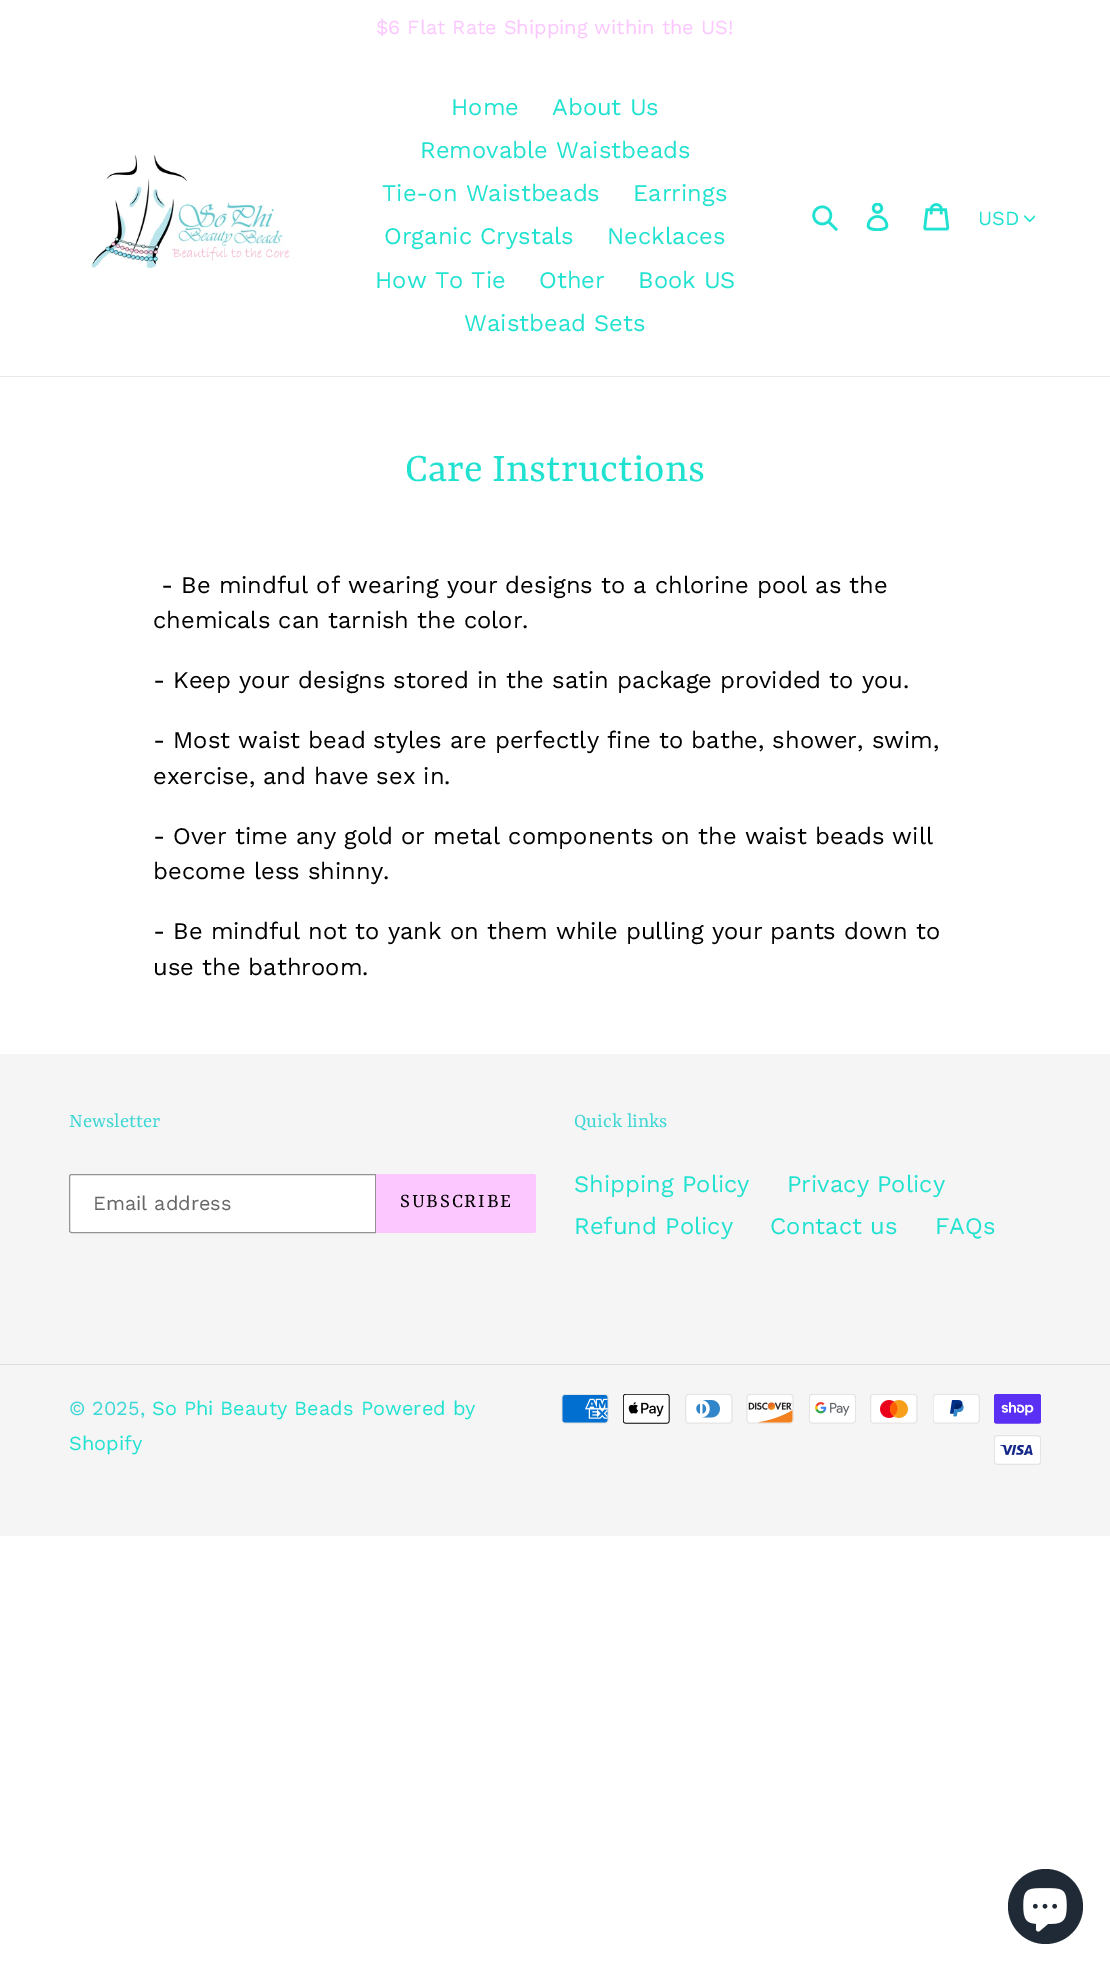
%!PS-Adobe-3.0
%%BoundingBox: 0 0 1110 1969
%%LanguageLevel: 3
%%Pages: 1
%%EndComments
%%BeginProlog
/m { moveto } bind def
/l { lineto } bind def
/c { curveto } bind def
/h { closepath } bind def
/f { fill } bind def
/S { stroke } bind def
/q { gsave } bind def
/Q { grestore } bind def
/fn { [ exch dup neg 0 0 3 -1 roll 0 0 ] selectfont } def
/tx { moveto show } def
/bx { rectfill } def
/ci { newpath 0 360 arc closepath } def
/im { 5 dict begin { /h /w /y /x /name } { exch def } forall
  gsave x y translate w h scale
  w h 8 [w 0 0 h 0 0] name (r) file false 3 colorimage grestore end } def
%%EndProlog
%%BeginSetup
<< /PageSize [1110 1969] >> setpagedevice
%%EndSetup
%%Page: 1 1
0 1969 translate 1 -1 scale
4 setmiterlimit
1 setgray
0 0 1110 1969 bx
/WorkSans-Regular 20 fn
0.988 0.776 1 setrgbcolor
($6 Flat Rate Shipping within the US!) 376 34 tx
0.91 0.914 0.922 setrgbcolor
0 376 1110 1 bx
(image0.raw) 91 154 199 117 im
/WorkSans-Regular 23.75 fn
0.129 0.886 0.816 setrgbcolor
(Home) 451 115 tx
(About Us) 552 115 tx
(Removable Waistbeads) 420 158 tx
(Tie-on Waistbeads) 382 201 tx
(Earrings) 633 201 tx
(Organic Crystals) 384 244 tx
(Necklaces) 607 244 tx
(How To Tie) 375 288 tx
(Other) 539 288 tx
(Book US) 638 288 tx
(Waistbead Sets) 464 331 tx
(image1.raw) 812 205 26 26 im
(image2.raw) 866 203 23 28 im
(image3.raw) 923 203 27 28 im
/WorkSans-Regular 20 fn
(USD) 978 225 tx
(image4.raw) 1024 215 11 8 im
/Yrsa-Regular 43.75 fn
(Care Instructions) 405 481 tx
/WorkSans-Regular 23.75 fn
0 setgray
(- Be mindful of wearing your designs to a chlorine pool as the) 161 593 tx
(chemicals can tarnish the color.) 153 628 tx
(- Keep your designs stored in the satin package provided to you.) 153 688 tx
(- Most waist bead styles are perfectly fine to bathe, shower, swim,) 153 748 tx
(exercise, and have sex in.) 153 784 tx
(- Over time any gold or metal components on the waist beads will) 153 844 tx
(become less shinny.) 153 879 tx
(- Be mindful not to yank on them while pulling your pants down to) 153 939 tx
(use the bathroom.) 153 975 tx
0.961 setgray
0 1054 1110 482 bx
/Yrsa-Regular 21.25 fn
0.247 0.839 0.839 setrgbcolor
(Newsletter) 69 1127 tx
1 setgray
71.5 1174.5 m 375.5 1174.5 l 375.5 1232.5 l 71.5 1232.5 l 70.5 1232.5 69.5 1231.5 69.5 1230.5 c 69.5 1176.5 l 69.5 1175.5 70.5 1174.5 71.5 1174.5 c h q f Q
0.58 setgray
S
/WorkSans-Regular 20 fn
0.4 setgray
(Email address) 93 1210 tx
0.988 0.776 1 setrgbcolor
376 1174 m 533.5 1174 l 535 1174 536 1175 536 1176.5 c 536 1230.5 l 536 1232 535 1233 533.5 1233 c 376 1233 l h f
/Yrsa-Regular 21.25 fn
0 setgray
400 1207 m 1.75 0 (SUBSCRIBE) ashow
0.247 0.839 0.839 setrgbcolor
(Quick links) 574 1127 tx
/WorkSans-Regular 23.75 fn
0.129 0.886 0.816 setrgbcolor
(Shipping Policy) 574 1192 tx
(Privacy Policy) 787 1192 tx
(Refund Policy) 574 1234 tx
(Contact us) 770 1234 tx
(FAQs) 935 1234 tx
0.863 setgray
0 1364 1110 1 bx
/WorkSans-Regular 20 fn
0.247 0.839 0.839 setrgbcolor
(© 2025,) 69 1415 tx
0.129 0.886 0.816 setrgbcolor
(So Phi Beauty Beads) 152 1415 tx
(Powered by) 361 1415 tx
(Shopify) 69 1450 tx
(image5.raw) 561 1394 48 30 im
(image6.raw) 623 1394 47 30 im
(image7.raw) 685 1394 48 30 im
(image8.raw) 746 1394 48 30 im
(image9.raw) 809 1394 47 30 im
(image10.raw) 870 1394 48 30 im
(image11.raw) 933 1394 47 30 im
(image12.raw) 994 1394 47 30 im
(image13.raw) 994 1435 47 30 im
0.125 0.165 0.212 setrgbcolor
1045.5 1906.5 37.5 ci f
(image14.raw) 1023 1888 44 44 im
showpage
%%EOF
